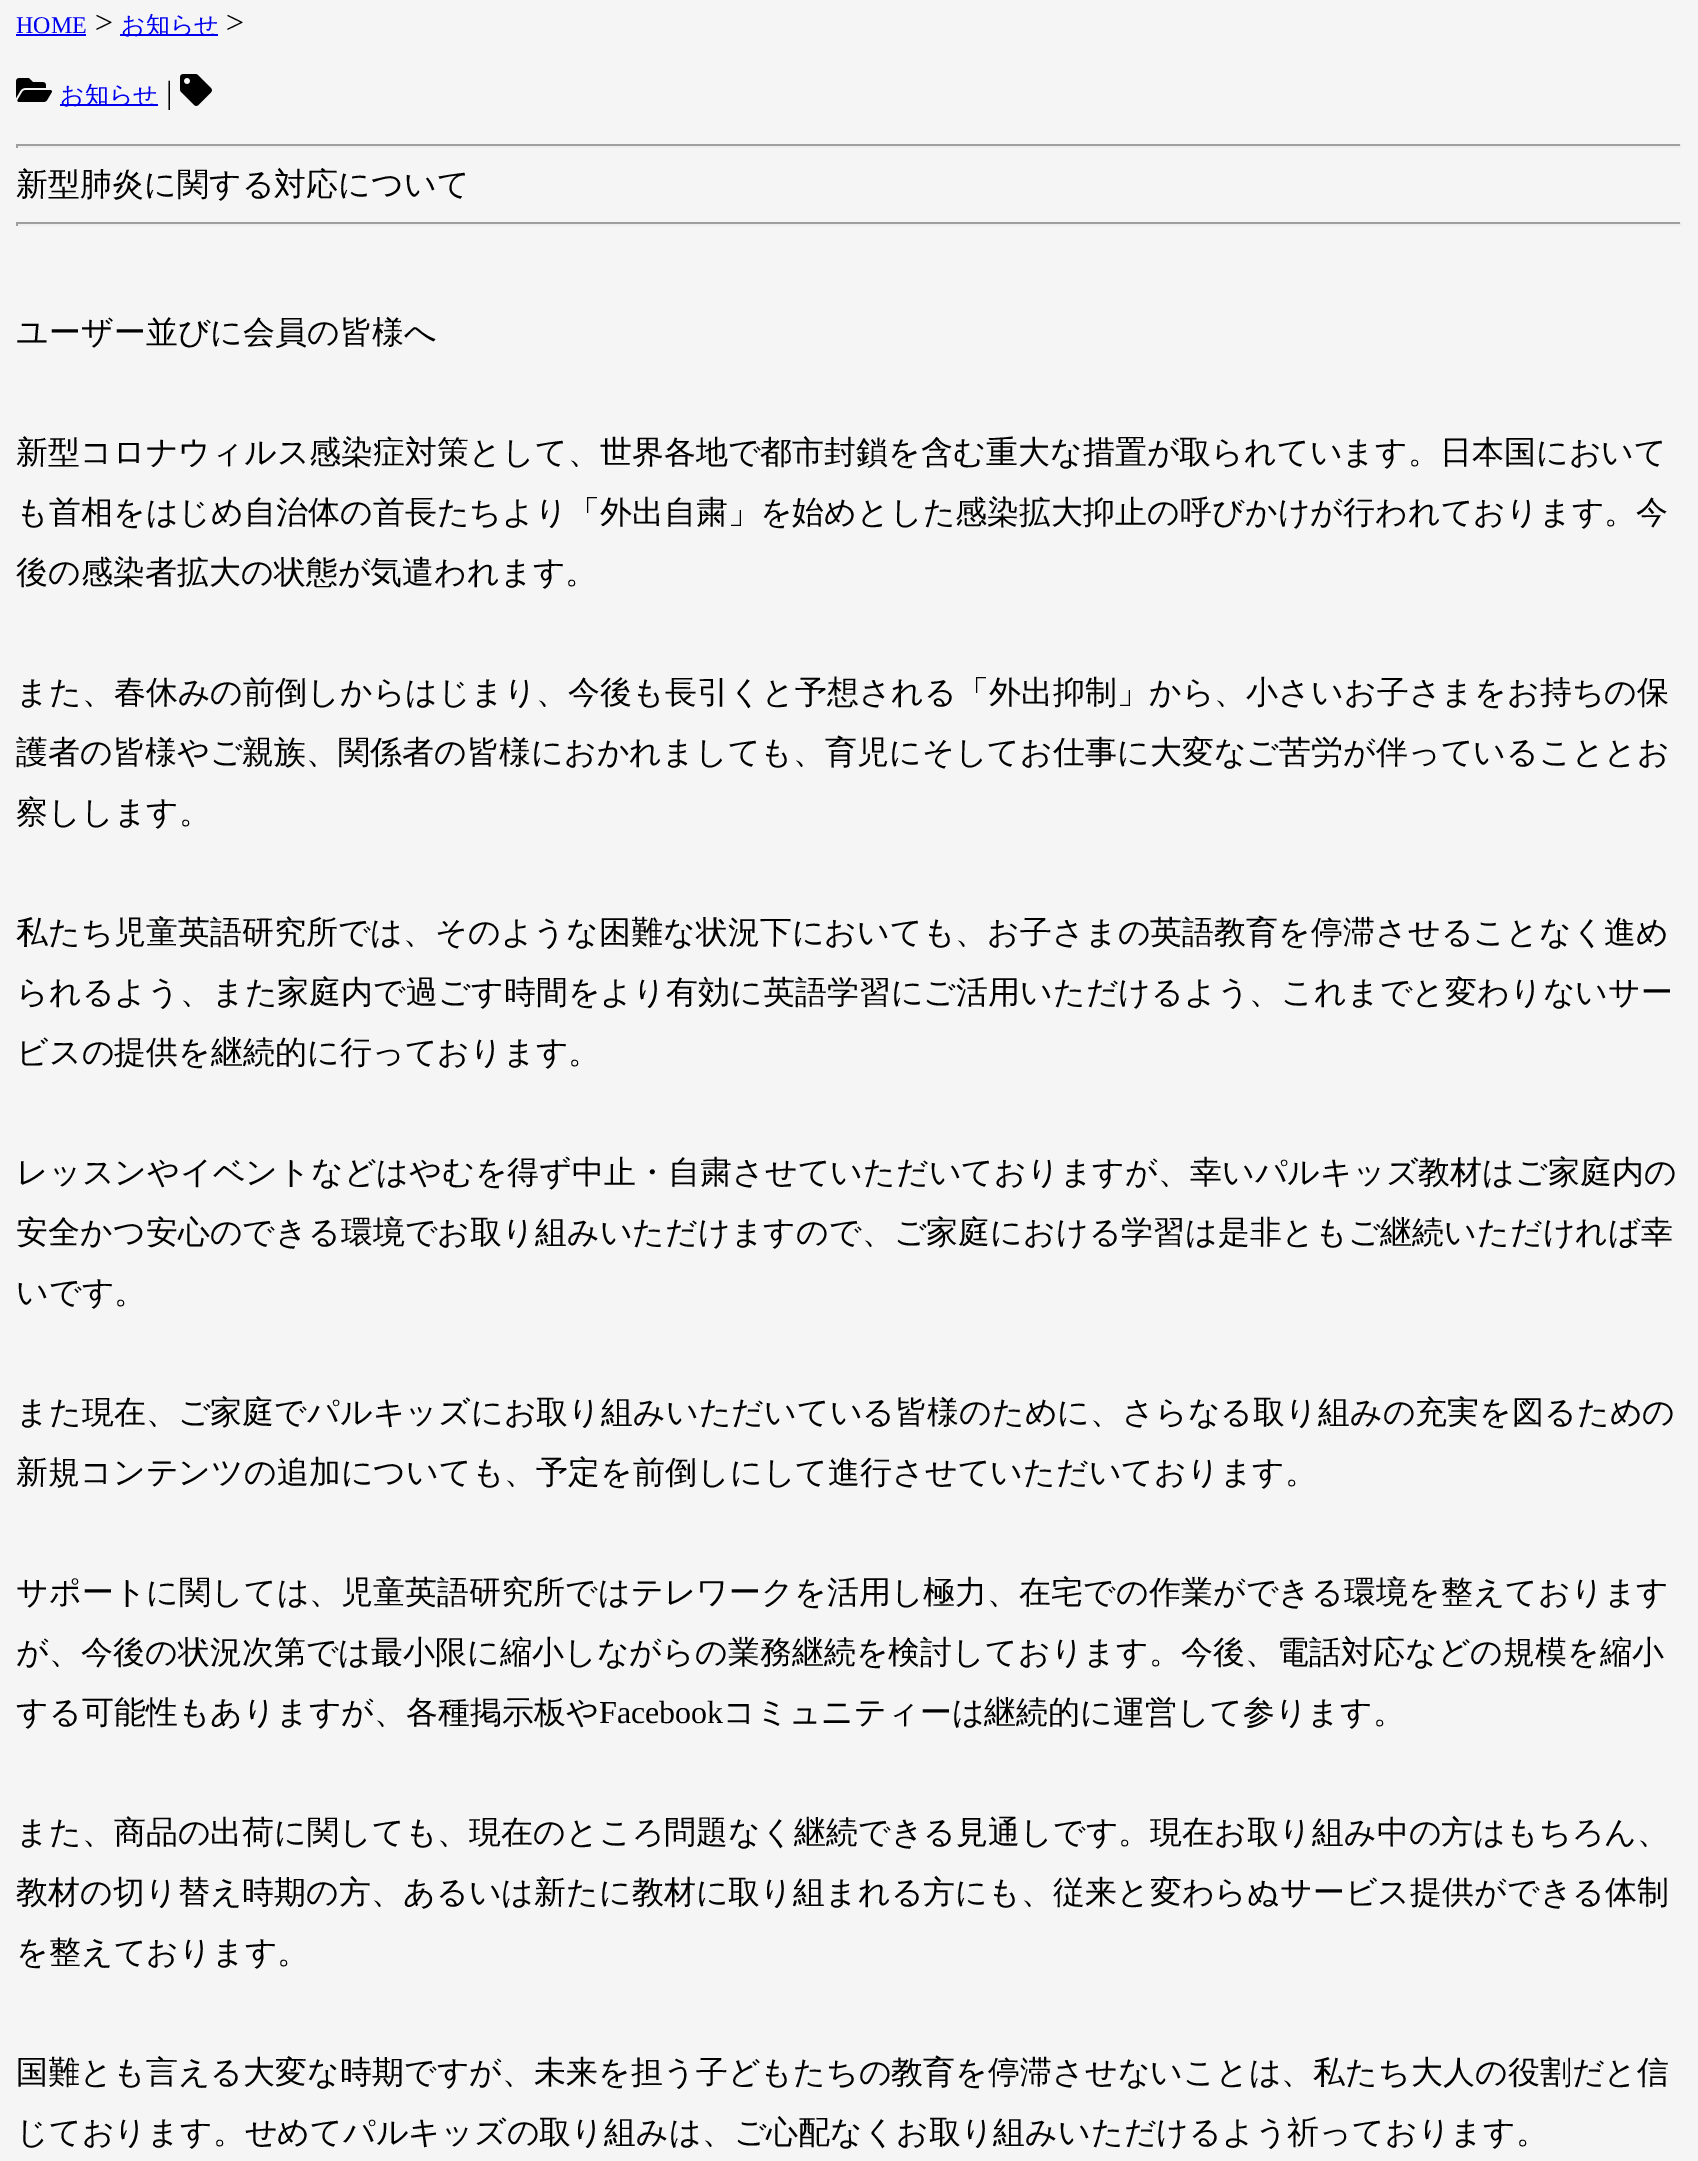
%!PS-Adobe-3.0
%%BoundingBox: 0 0 1698 2161
%%LanguageLevel: 3
%%Pages: 1
%%EndComments
%%BeginProlog
/fn { [ exch dup neg 0 0 3 -1 roll 0 0 ] selectfont } def
/tx { moveto show } def
/bx { rectfill } def
/im { 5 dict begin { /h /w /y /x /name } { exch def } forall
  gsave x y translate w h scale
  w h 8 [w 0 0 h 0 0] name (r) file false 3 colorimage grestore end } def
%%EndProlog
%%BeginSetup
<< /PageSize [1698 2161] >> setpagedevice
%%EndSetup
%%Page: 1 1
0 2161 translate 1 -1 scale
4 setmiterlimit
0.961 setgray
0 0 1698 2161 bx
/LiberationSerif-Regular 24 fn
0 0 0.933 setrgbcolor
(HOME) 16 33 tx
16 34 70 2 bx
/LiberationSerif-Regular 32 fn
0 setgray
(>) 95 33 tx
0 0 0.933 setrgbcolor
120 34 98 2 bx
/WenQuanYiZenHei-Medium 24 fn
(お知らせ) 121 33 tx
/LiberationSerif-Regular 32 fn
0 setgray
(>) 226 33 tx
(image0.raw) 16 78 36 24 im
0 0 0.933 setrgbcolor
60 104 98 2 bx
/WenQuanYiZenHei-Medium 24 fn
(お知らせ) 60 103 tx
/LiberationSerif-Regular 32 fn
0 setgray
(|) 166 103 tx
(image1.raw) 180 74 32 32 im
0.624 setgray
16 144 1666 2 bx
0.933 setgray
1680 144 2 4 bx
16 146 1666 2 bx
0.624 setgray
16 144 2 4 bx
/WenQuanYiZenHei-Medium 32 fn
0 setgray
(新型肺炎に関する対応について) 16 195 tx
0.624 setgray
16 222 1666 2 bx
0.933 setgray
1680 222 2 4 bx
16 224 1666 2 bx
0.624 setgray
16 222 2 4 bx
0 setgray
(ユーザー並びに会員の皆様へ) 16 343 tx
(新型コロナウィルス感染症対策として、世界各地で都市封鎖を含む重大な措置が取られています。日本国において) 16 463 tx
(も首相をはじめ自治体の首長たちより「外出自粛」を始めとした感染拡大抑止の呼びかけが行われております。今) 16 523 tx
(後の感染者拡大の状態が気遣われます。) 16 583 tx
(また、春休みの前倒しからはじまり、今後も長引くと予想される「外出抑制」から、小さいお子さまをお持ちの保) 16 703 tx
(護者の皆様やご親族、関係者の皆様におかれましても、育児にそしてお仕事に大変なご苦労が伴っていることとお) 16 763 tx
(察しします。) 16 823 tx
(私たち児童英語研究所では、そのような困難な状況下においても、お子さまの英語教育を停滞させることなく進め) 16 943 tx
(られるよう、また家庭内で過ごす時間をより有効に英語学習にご活用いただけるよう、これまでと変わりないサー) 16 1003 tx
(ビスの提供を継続的に行っております。) 16 1063 tx
(レッスンやイベントなどはやむを得ず中止・自粛させていただいておりますが、幸いパルキッズ教材はご家庭内の) 16 1183 tx
(安全かつ安心のできる環境でお取り組みいただけますので、ご家庭における学習は是非ともご継続いただければ幸) 16 1243 tx
(いです。) 16 1303 tx
(また現在、ご家庭でパルキッズにお取り組みいただいている皆様のために、さらなる取り組みの充実を図るための) 16 1423 tx
(新規コンテンツの追加についても、予定を前倒しにして進行させていただいております。) 16 1483 tx
(サポートに関しては、児童英語研究所ではテレワークを活用し極力、在宅での作業ができる環境を整えております) 16 1603 tx
(が、今後の状況次第では最小限に縮小しながらの業務継続を検討しております。今後、電話対応などの規模を縮小) 16 1663 tx
(する可能性もありますが、各種掲示板や) 16 1723 tx
/LiberationSerif-Regular 32 fn
(Facebook) 599 1723 tx
/WenQuanYiZenHei-Medium 32 fn
(コミュニティーは継続的に運営して参ります。) 723 1723 tx
(また、商品の出荷に関しても、現在のところ問題なく継続できる見通しです。現在お取り組み中の方はもちろん、) 16 1843 tx
(教材の切り替え時期の方、あるいは新たに教材に取り組まれる方にも、従来と変わらぬサービス提供ができる体制) 16 1903 tx
(を整えております。) 16 1963 tx
(国難とも言える大変な時期ですが、未来を担う子どもたちの教育を停滞させないことは、私たち大人の役割だと信) 16 2083 tx
(じております。せめてパルキッズの取り組みは、ご心配なくお取り組みいただけるよう祈っております。) 16 2143 tx
showpage
%%EOF
